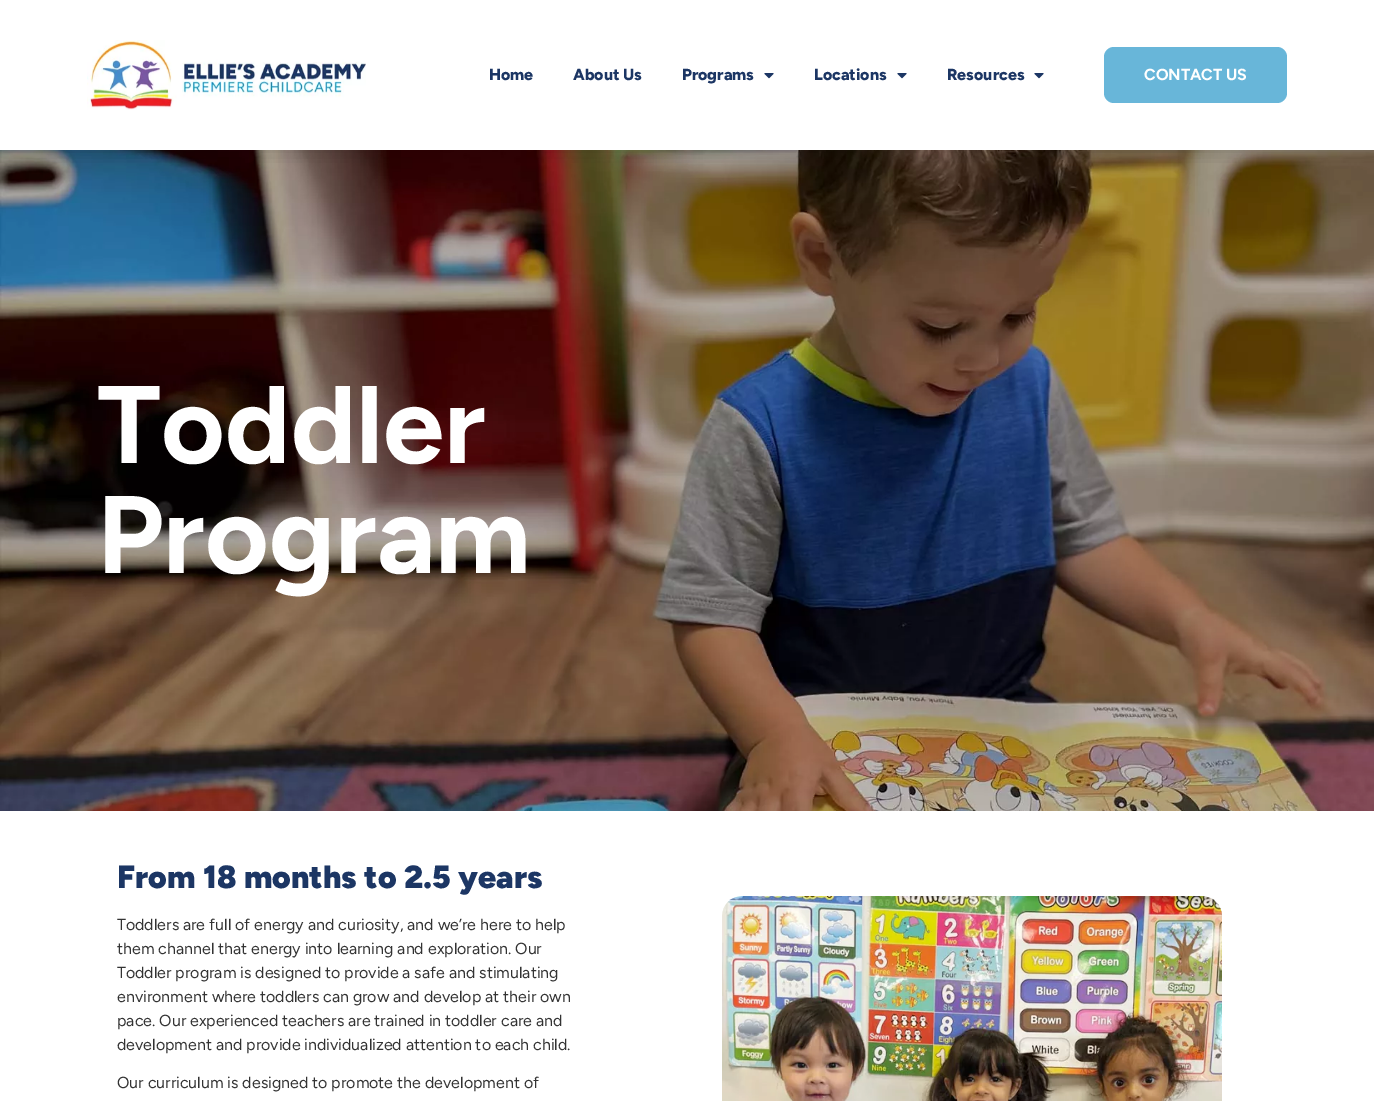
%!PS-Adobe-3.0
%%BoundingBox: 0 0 1374 1101
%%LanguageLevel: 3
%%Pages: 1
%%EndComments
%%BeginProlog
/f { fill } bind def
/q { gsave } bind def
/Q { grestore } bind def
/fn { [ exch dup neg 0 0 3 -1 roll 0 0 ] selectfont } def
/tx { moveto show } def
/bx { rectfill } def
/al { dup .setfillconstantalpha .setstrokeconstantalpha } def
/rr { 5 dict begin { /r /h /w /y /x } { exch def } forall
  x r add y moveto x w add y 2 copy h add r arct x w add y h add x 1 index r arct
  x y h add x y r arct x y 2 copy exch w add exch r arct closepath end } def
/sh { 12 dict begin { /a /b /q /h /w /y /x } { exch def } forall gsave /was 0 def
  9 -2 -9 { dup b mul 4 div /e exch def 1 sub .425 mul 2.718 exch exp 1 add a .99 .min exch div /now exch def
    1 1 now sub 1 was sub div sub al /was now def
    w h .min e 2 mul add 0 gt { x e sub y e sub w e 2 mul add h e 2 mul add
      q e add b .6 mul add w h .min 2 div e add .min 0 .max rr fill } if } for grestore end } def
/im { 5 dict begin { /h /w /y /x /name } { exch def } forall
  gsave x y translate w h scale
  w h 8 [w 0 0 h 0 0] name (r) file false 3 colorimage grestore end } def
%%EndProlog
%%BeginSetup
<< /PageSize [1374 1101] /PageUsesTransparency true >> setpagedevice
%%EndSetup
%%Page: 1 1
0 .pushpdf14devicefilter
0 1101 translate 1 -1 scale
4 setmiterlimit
1 setgray
0 0 1374 1101 bx
(image2.raw) 0 150 1374 661 im
q
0 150 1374 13 rectclip
0 setgray
0 0 1374 150 0 12 0.15 sh
Q
(image0.raw) 87 40 279 70 im
/Figtree-ExtraBold 16 fn
0.11 0.212 0.392 setrgbcolor
(Home) 489 80 tx
(About Us) 573 80 tx
(Programs) 682 80 tx
(image1.raw) 764 73 10 6 im
(Locations) 814 80 tx
(image1.raw) 897 73 10 6 im
(Resources) 947 80 tx
(image1.raw) 1034 73 10 6 im
0.408 0.714 0.851 setrgbcolor
1104 47 183 56 10 rr f
/Figtree-Bold 16 fn
1 setgray
(CONTACT US) 1144 80 tx
/Figtree-Bold 110 fn
(Toddler) 97 463 tx
(Program) 97 573 tx
/Figtree-Black 32 fn
0.11 0.212 0.392 setrgbcolor
(From 18 months to 2.5 years) 117 888 tx
/Figtree-Regular 16 fn
0.2 setgray
(Toddlers are full of energy and curiosity, and we’re here to help) 117 930 tx
(them channel that energy into learning and exploration. Our) 117 954 tx
(Toddler program is designed to provide a safe and stimulating) 117 978 tx
(environment where toddlers can grow and develop at their own) 117 1002 tx
(pace. Our experienced teachers are trained in toddler care and) 117 1026 tx
(development and provide individualized attention to each child.) 117 1050 tx
(Our curriculum is designed to promote the development of) 117 1088 tx
(image3.raw) 722 896 500 205 im
.poppdf14devicefilter showpage
%%EOF
